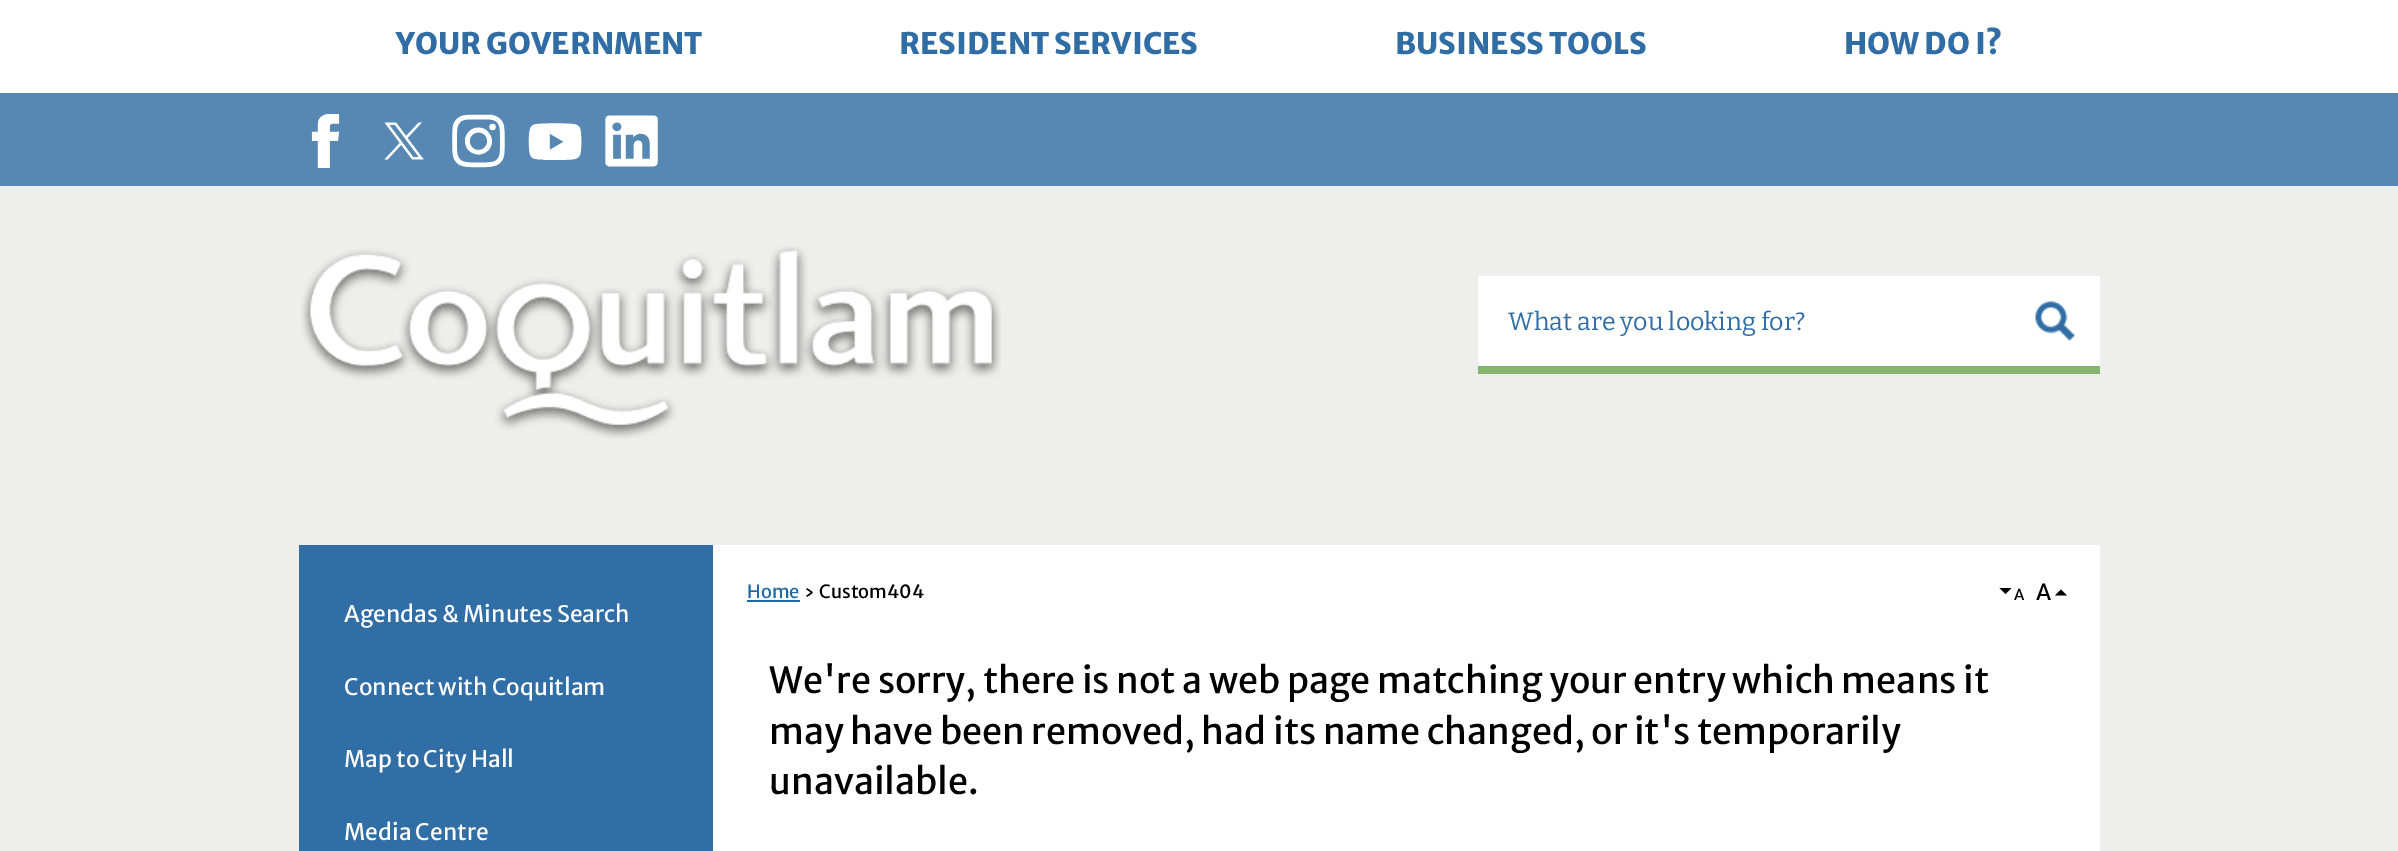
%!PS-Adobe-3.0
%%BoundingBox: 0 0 2398 851
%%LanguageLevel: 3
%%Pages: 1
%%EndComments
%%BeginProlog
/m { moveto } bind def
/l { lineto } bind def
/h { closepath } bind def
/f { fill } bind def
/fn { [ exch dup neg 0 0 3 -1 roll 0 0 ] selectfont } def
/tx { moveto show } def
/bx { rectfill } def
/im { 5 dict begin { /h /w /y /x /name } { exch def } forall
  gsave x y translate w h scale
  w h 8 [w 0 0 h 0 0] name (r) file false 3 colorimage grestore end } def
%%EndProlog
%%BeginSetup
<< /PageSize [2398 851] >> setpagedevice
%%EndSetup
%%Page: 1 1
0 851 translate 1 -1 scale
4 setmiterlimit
0.933 0.933 0.929 setrgbcolor
0 0 2398 851 bx
1 setgray
0 0 2398 93 bx
/MerriweatherSans-ExtraBold 29.6 fn
0.188 0.427 0.643 setrgbcolor
(YOUR GOVERNMENT) 396 54 tx
(RESIDENT SERVICES) 899 54 tx
(BUSINESS TOOLS) 1395 54 tx
(HOW DO I?) 1844 54 tx
0.337 0.533 0.702 setrgbcolor
0 93 2398 93 bx
(image0.raw) 311 114 29 54 im
(image1.raw) 384 122 40 38 im
(image2.raw) 452 114 53 54 im
(image3.raw) 528 123 54 37 im
(image4.raw) 605 115 53 52 im
(image5.raw) 301 246 700 193 im
1 setgray
1478 276 622 90 bx
0.522 0.706 0.424 setrgbcolor
1478 366 622 8 bx
/Bitter-Regular 25 fn
0.188 0.427 0.643 setrgbcolor
(What are you looking for?) 1508 330 tx
(image6.raw) 2035 301 40 40 im
1 setgray
713 545 1387 306 bx
0.188 0.431 0.647 setrgbcolor
299 545 414 306 bx
/MerriweatherSans-Regular 22.75 fn
1 setgray
(Agendas & Minutes Search) 344 622 tx
(Connect with Coquitlam) 344 695 tx
(Map to City Hall) 344 767 tx
(Media Centre) 344 840 tx
/MerriweatherSans-Regular 18.25 fn
0.129 0.412 0.635 setrgbcolor
(Home) 747 598 tx
747 600 53 2 bx
0 setgray
(›) 804 598 tx
(Custom404) 819 598 tx
1999.5 588 m 2011.5 588 l 2005.5 594 l h f
/MerriweatherSans-Regular 15 fn
(A) 2014 600 tx
/MerriweatherSans-Regular 22 fn
(A) 2036 600 tx
2067 595.5 m 2055 595.5 l 2061 589.5 l h f
/MerriweatherSans-Regular 36 fn
(We're sorry, there is not a web page matching your entry which means it) 769 693 tx
(may have been removed, had its name changed, or it's temporarily) 769 744 tx
(unavailable.) 769 794 tx
showpage
%%EOF
